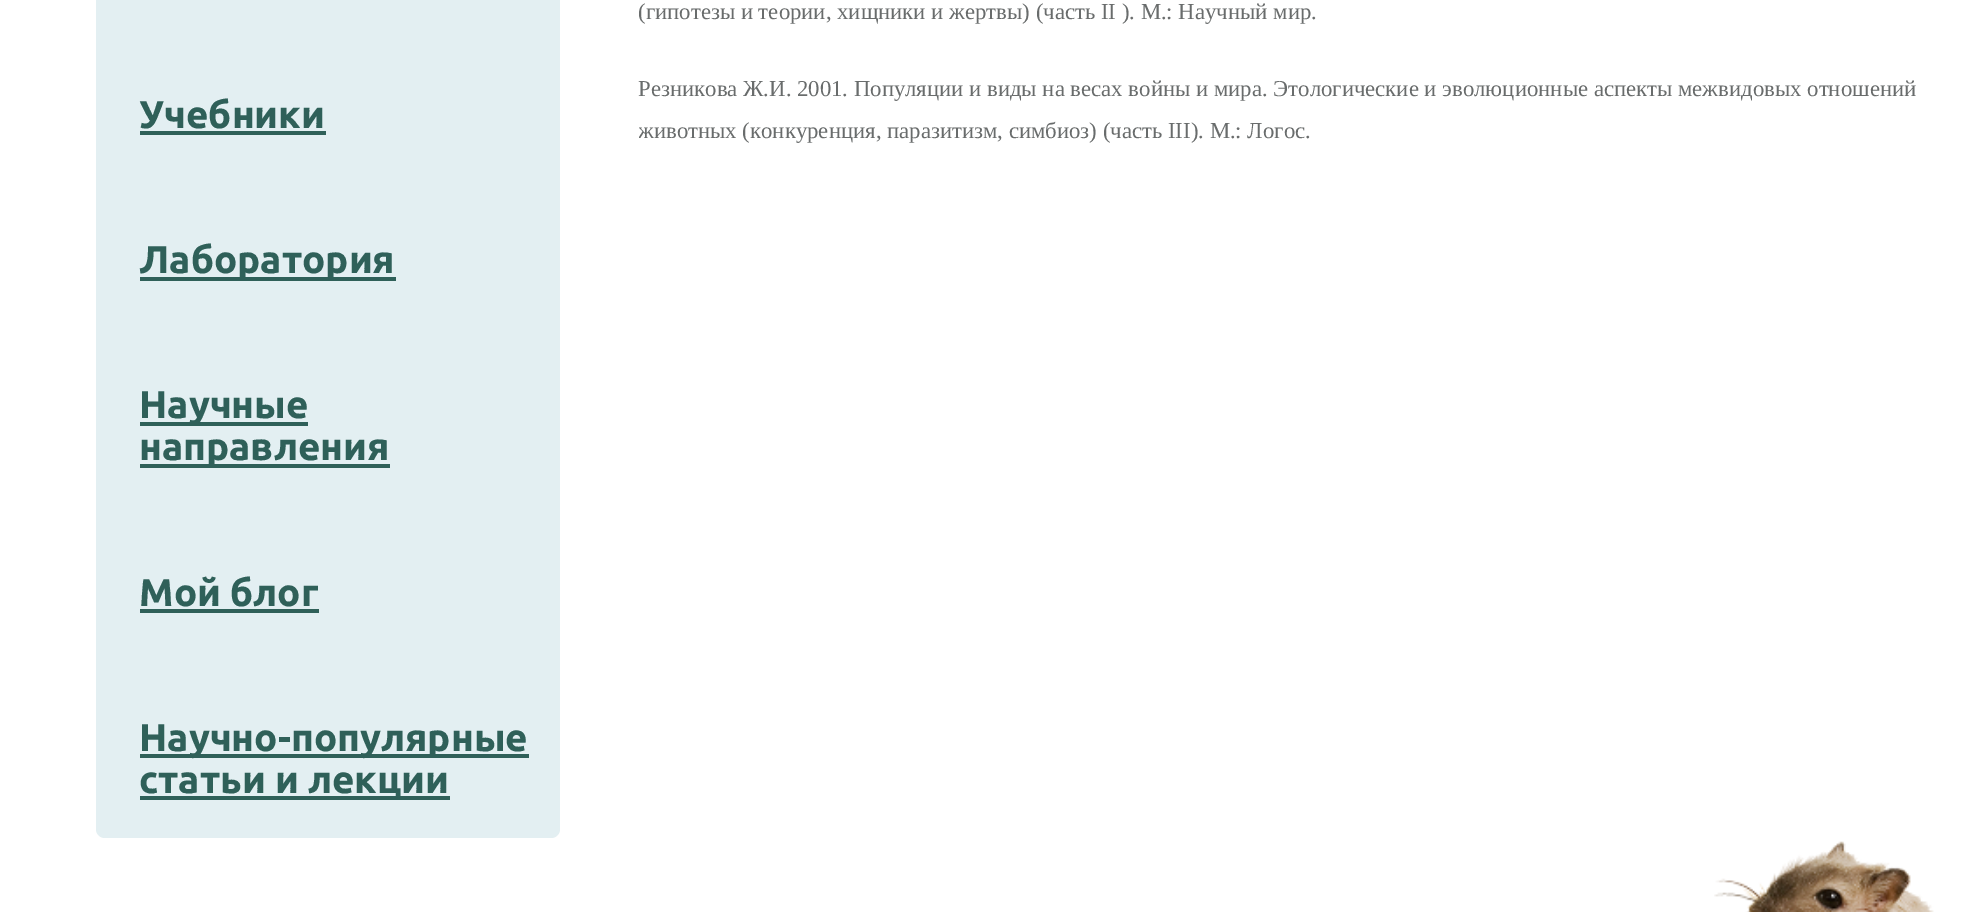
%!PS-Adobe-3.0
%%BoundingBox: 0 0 1975 912
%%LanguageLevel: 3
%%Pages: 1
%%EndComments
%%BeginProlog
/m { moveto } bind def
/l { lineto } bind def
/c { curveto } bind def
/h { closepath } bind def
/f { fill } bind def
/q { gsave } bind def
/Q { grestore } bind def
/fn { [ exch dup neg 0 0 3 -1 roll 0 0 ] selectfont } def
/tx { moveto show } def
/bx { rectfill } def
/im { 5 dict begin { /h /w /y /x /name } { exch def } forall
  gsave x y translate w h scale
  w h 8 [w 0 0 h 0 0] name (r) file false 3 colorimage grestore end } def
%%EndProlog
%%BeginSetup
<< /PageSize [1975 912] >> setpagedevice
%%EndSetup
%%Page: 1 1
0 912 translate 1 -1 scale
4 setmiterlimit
1 setgray
0 0 1975 912 bx
q
639 0 1295 264 rectclip
/LiberationSerif-Regular 22.75 fn
0.412 0.424 0.424 setrgbcolor
(\(гипотезы и теории, хищники и жертвы\) \(часть II \). М.: Научный мир.) 638 19 tx
Q
/LiberationSerif-Regular 22.75 fn
0.412 0.424 0.424 setrgbcolor
(Резникова Ж.И. 2001. Популяции и виды на весах войны и мира. Этологические и эволюционные аспекты межвидовых отношений) 638 96 tx
q
639 0 1295 264 rectclip
(животных \(конкуренция, паразитизм, симбиоз\) \(часть III\). М.: Логос.) 638 138 tx
Q
0.89 0.937 0.949 setrgbcolor
96 -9 m 560 -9 l 560 829 l 560 834 556 838 551 838 c 105 838 l 100 838 96 834 96 829 c h f
/Ubuntu-Bold 38.5 fn
0.184 0.376 0.349 setrgbcolor
(Учебники) 139 128 tx
140 131 186 4 bx
140 277 256 4 bx
(Лаборатория) 139 273 tx
140 422 168 4 bx
(Научные) 139 418 tx
140 464 250 4 bx
(направления) 139 460 tx
(Мой блог) 139 606 tx
140 609 179 4 bx
140 754 389 4 bx
(Научно-популярные) 139 751 tx
140 796 310 4 bx
(статьи и лекции) 139 793 tx
(image0.raw) 1714 841 220 71 im
showpage
%%EOF
